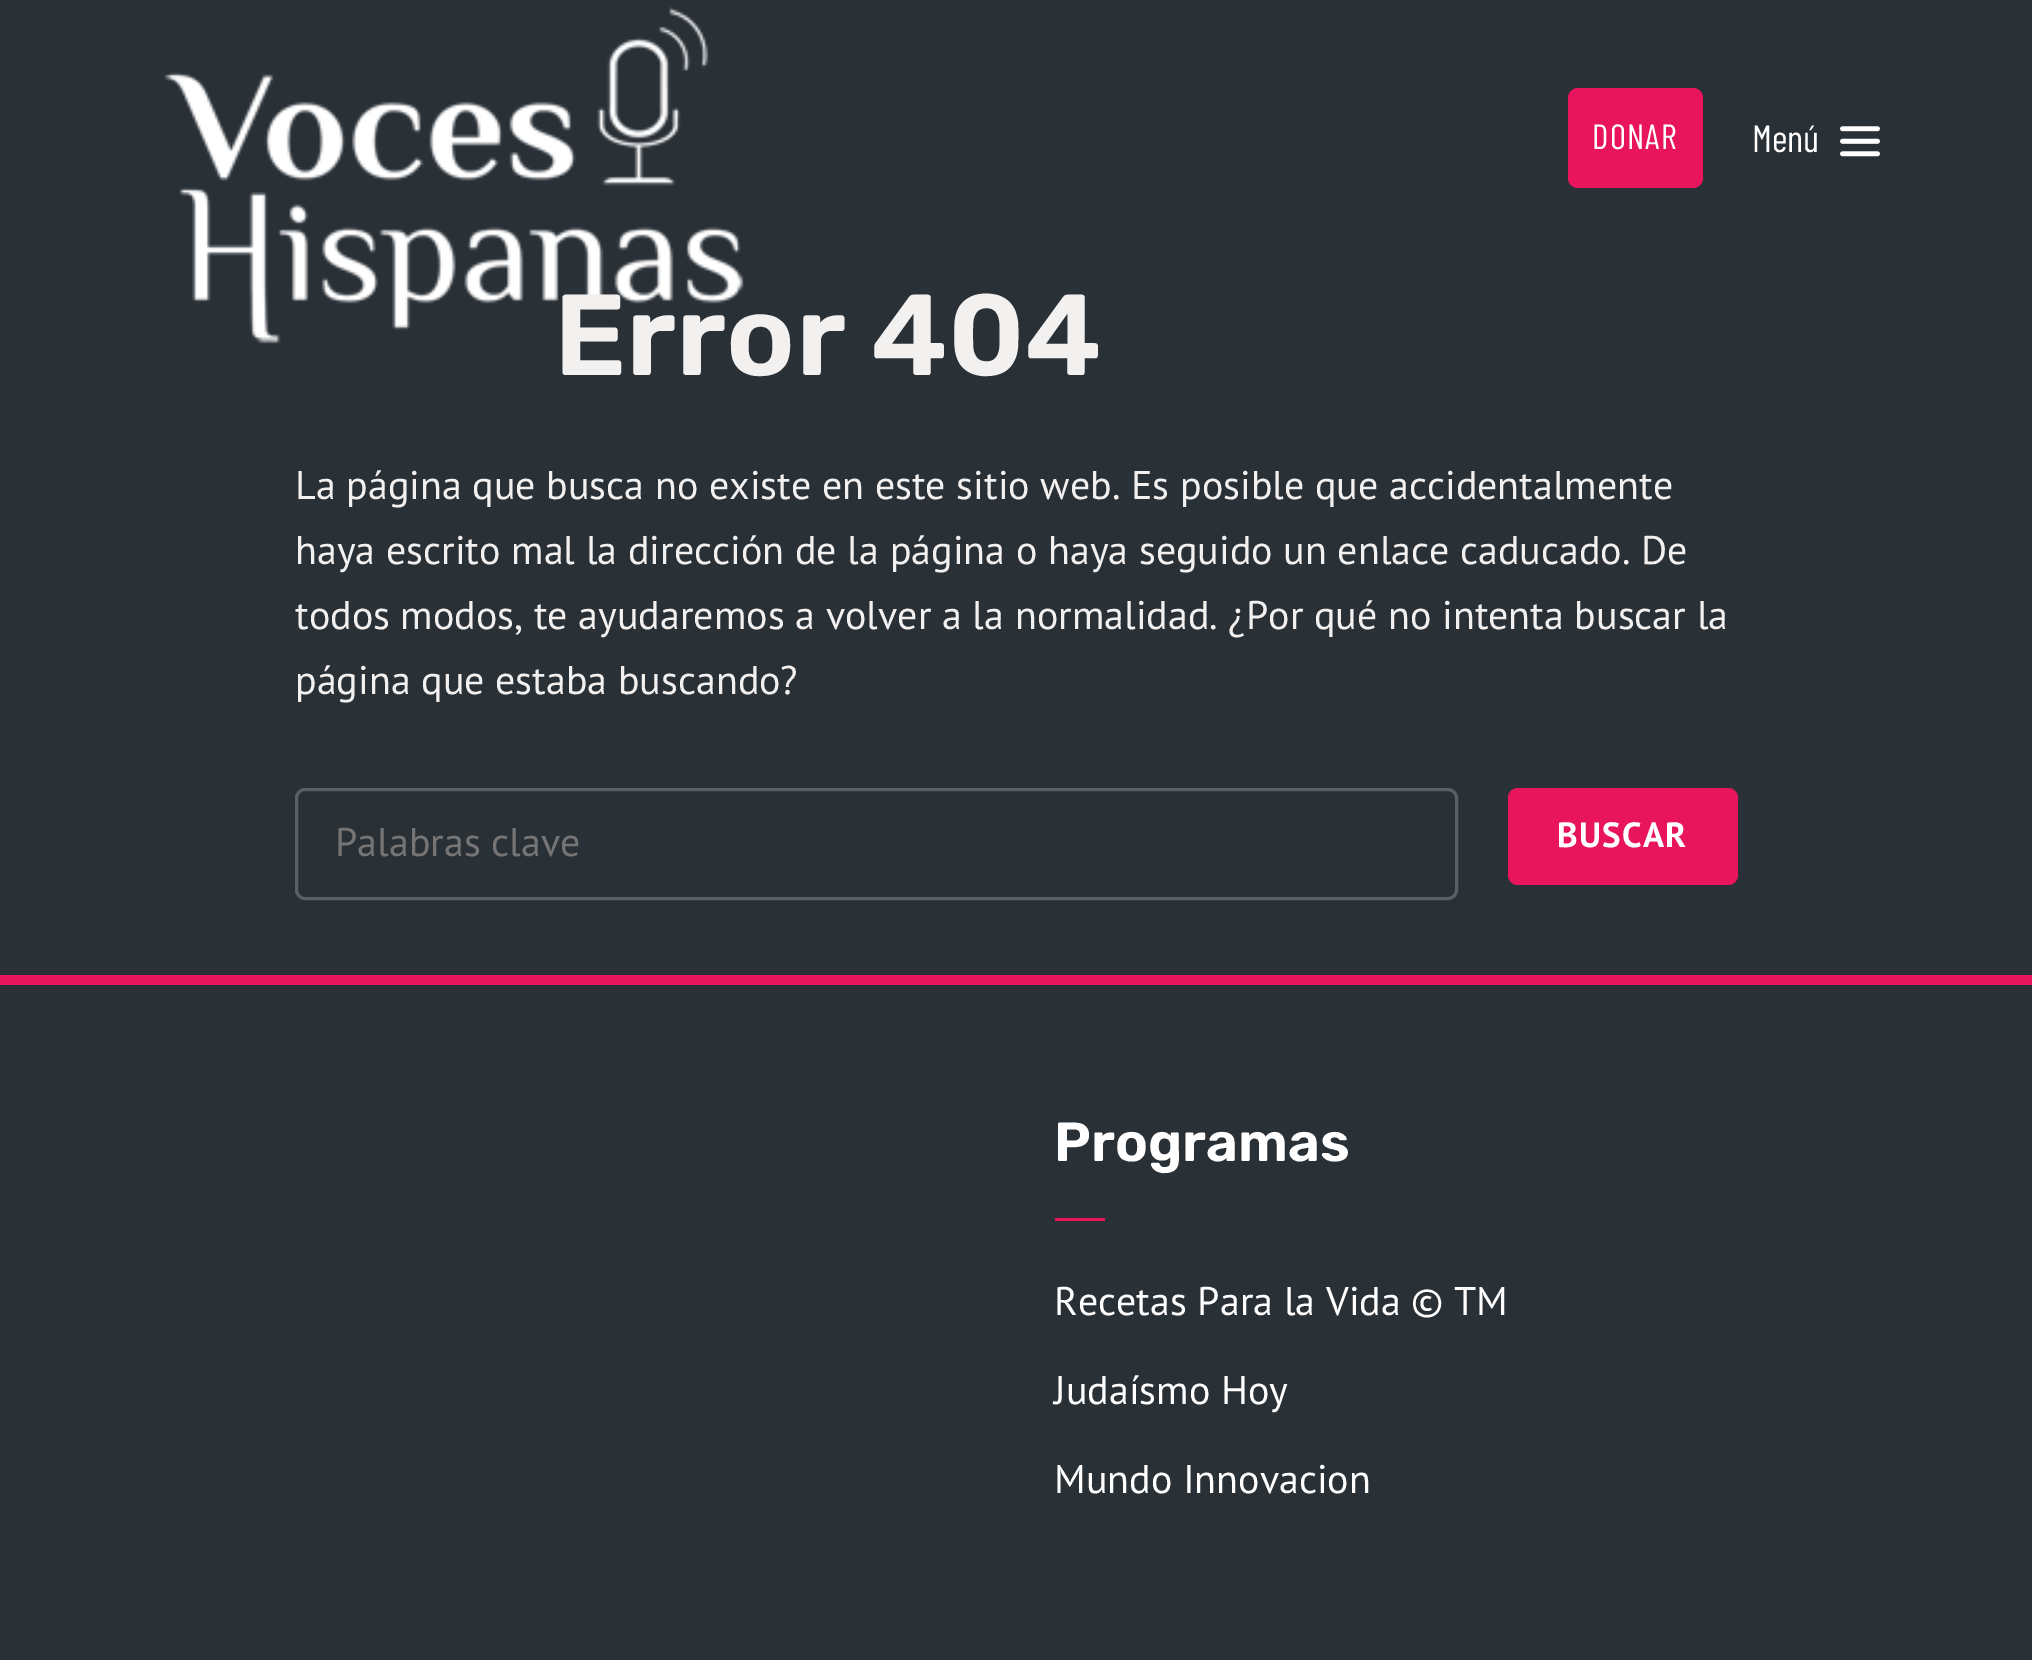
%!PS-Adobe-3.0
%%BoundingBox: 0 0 2032 1660
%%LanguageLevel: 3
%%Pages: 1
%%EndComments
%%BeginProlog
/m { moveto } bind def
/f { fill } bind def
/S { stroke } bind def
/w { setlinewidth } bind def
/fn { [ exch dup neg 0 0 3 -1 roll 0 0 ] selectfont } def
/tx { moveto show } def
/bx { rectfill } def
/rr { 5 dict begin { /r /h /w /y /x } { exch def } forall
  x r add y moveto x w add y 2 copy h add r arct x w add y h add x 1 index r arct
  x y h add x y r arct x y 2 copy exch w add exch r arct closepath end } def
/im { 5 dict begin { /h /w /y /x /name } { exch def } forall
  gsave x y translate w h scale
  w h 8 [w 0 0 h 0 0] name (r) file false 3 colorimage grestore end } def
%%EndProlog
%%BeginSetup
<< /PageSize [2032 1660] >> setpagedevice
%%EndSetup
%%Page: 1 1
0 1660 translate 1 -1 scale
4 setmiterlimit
0.161 0.188 0.212 setrgbcolor
0 0 2032 1660 bx
(image0.raw) 164 7 580 337 im
0.91 0.082 0.361 setrgbcolor
1568 88 135 100 10 rr f
/BarlowCondensed-Regular 35 fn
1 setgray
1592 149 m 1.25 0 (DONAR) ashow
/BarlowCondensed-Regular 38 fn
(Menú) 1752 152 tx
(image1.raw) 1840 126 40 31 im
/Rubik-SemiBold 115 fn
0.953 0.941 0.941 setrgbcolor
(Error 404) 554 375 tx
/PTSans-Regular 40 fn
(La página que busca no existe en este sitio web. Es posible que accidentalmente) 295 499 tx
(haya escrito mal la dirección de la página o haya seguido un enlace caducado. De) 295 564 tx
(todos modos, te ayudaremos a volver a la normalidad. ¿Por qué no intenta buscar la) 295 629 tx
(página que estaba buscando?) 295 694 tx
0.361 0.376 0.396 setrgbcolor
3 w
296.5 789.5 1160 109 8.5 rr S
0.459 setgray
(Palabras clave) 335 856 tx
0.91 0.082 0.361 setrgbcolor
1508 788 230 97 10 rr f
/PTSans-Bold 35 fn
1 setgray
1557 847 m 1.25 0 (BUSCAR) ashow
0.91 0.082 0.361 setrgbcolor
0 975 2032 10 bx
/Rubik-SemiBold 55 fn
1 setgray
(Programas) 1054 1161 tx
0.91 0.082 0.361 setrgbcolor
1055 1218 50 3 bx
/PTSans-Regular 40 fn
1 setgray
(Recetas Para la Vida © TM) 1054 1315 tx
(Judaísmo Hoy) 1054 1404 tx
(Mundo Innovacion) 1054 1493 tx
showpage
%%EOF
